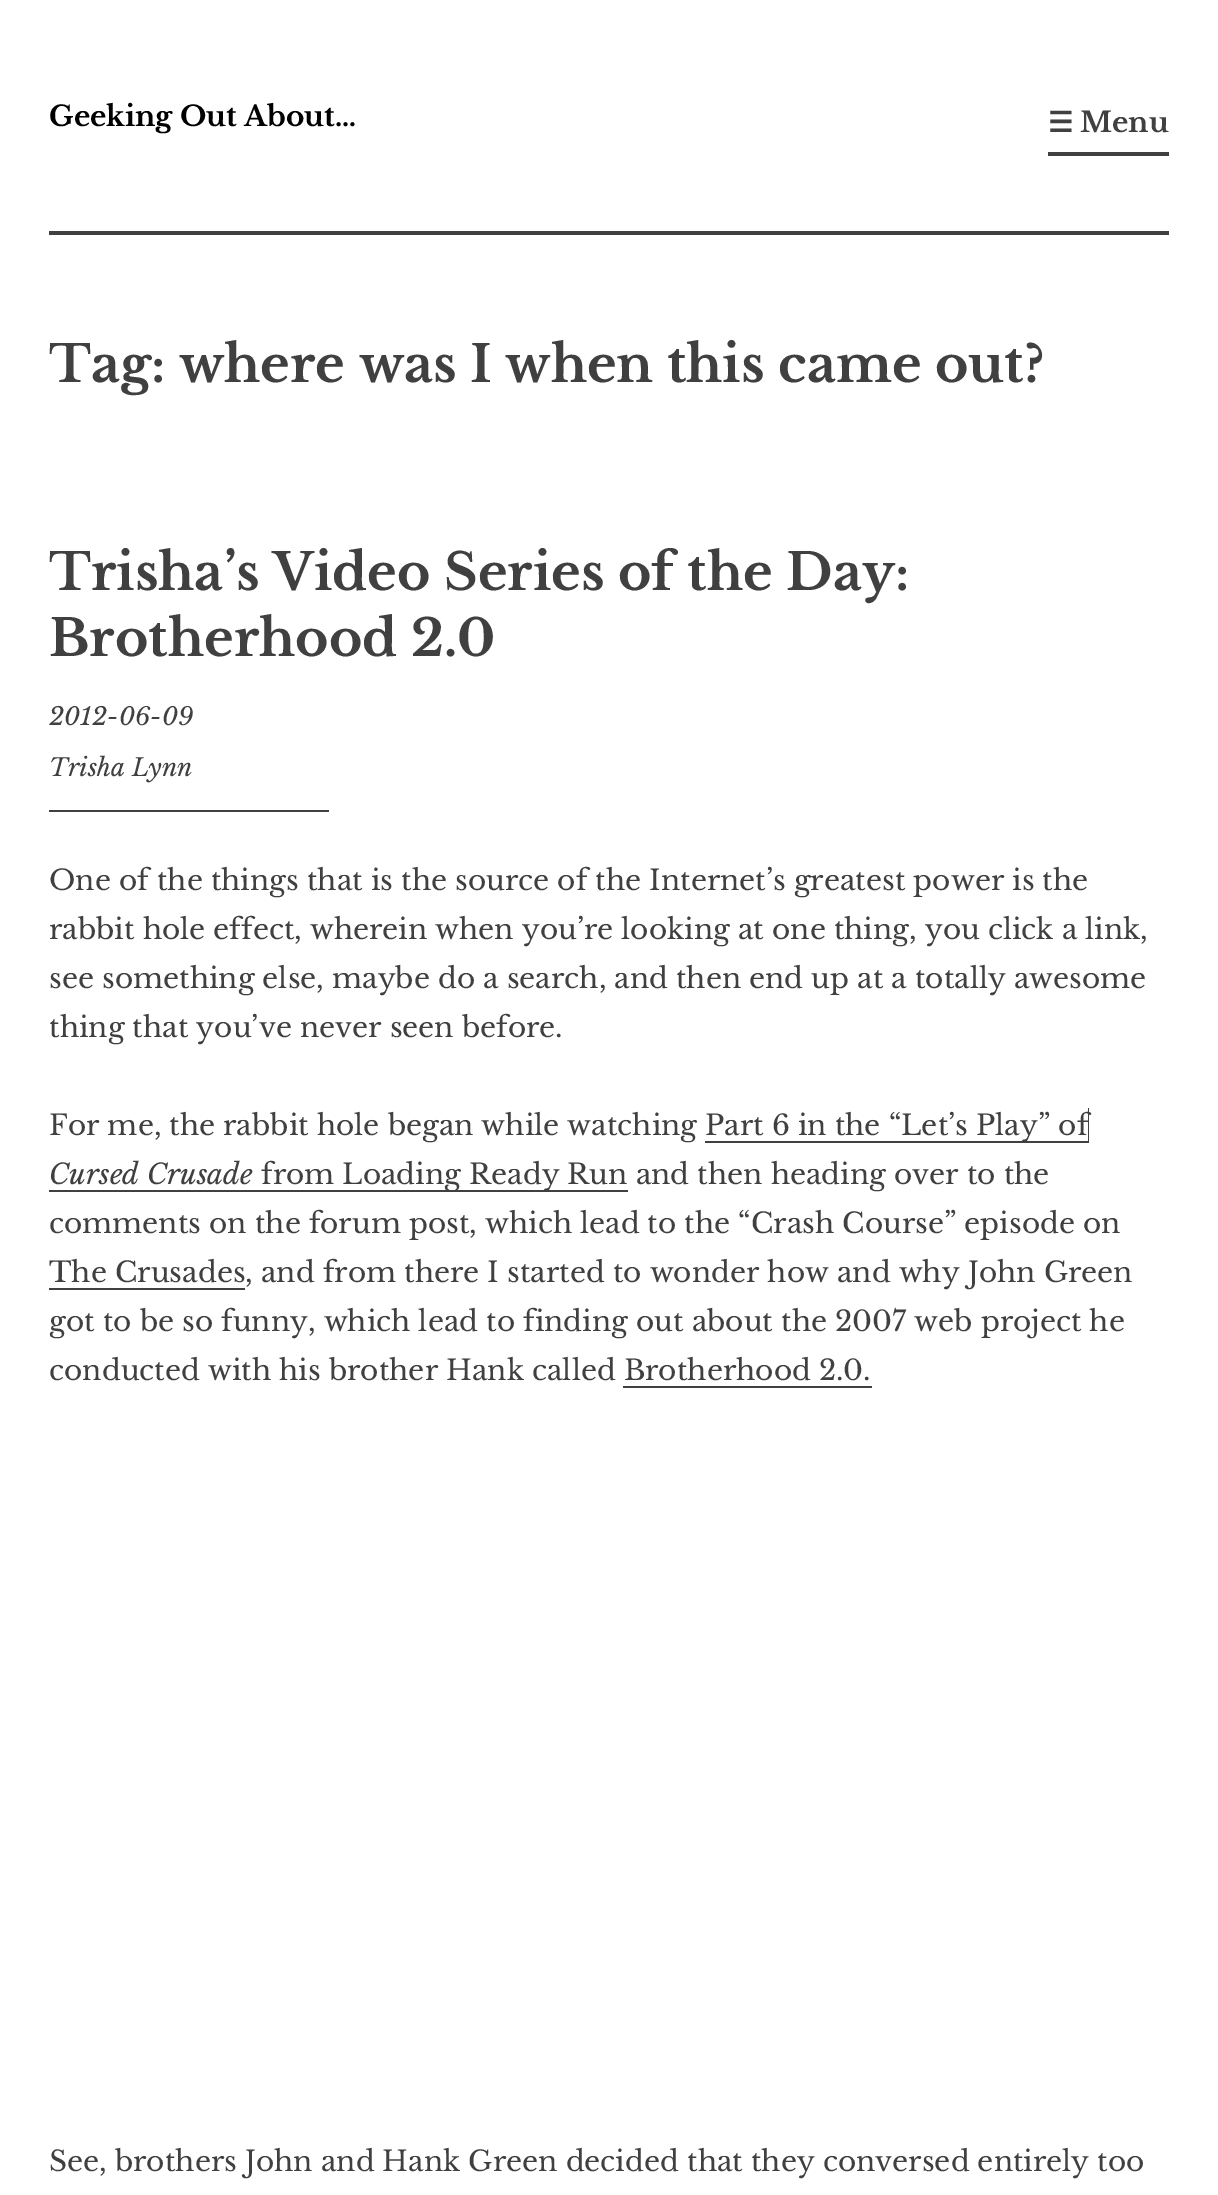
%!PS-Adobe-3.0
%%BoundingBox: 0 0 1218 2195
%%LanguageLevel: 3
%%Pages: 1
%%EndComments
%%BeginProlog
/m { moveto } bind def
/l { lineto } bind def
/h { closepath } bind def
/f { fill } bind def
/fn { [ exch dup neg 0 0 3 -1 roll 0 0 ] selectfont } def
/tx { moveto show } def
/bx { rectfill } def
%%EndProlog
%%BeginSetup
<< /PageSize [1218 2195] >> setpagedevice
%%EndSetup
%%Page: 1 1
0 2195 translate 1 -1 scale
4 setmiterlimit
1 setgray
0 0 1218 2195 bx
/LibreBaskerville-Bold 28 fn
0 setgray
(Geeking Out About…) 49 126 tx
0.251 setgray
49 231 1120 4 bx
1048 95 m 1048 156 l 1169 156 l 1169 152 l 1048 152 l h f
/DejaVuSans-Bold 28 fn
(☰) 1048 132 tx
/LibreBaskerville-Bold 28 fn
(Menu) 1080 132 tx
/LibreBaskerville-Bold 50.75 fn
(Tag: where was I when this came out?) 49 382 tx
(Trisha’s Video Series of the Day:) 49 590 tx
(Brotherhood 2.0) 49 656 tx
/LibreBaskerville-Italic 24.5 fn
(2012-06-09) 49 725 tx
(Trisha Lynn) 49 776 tx
49 810 280 2 bx
/LibreBaskerville-Regular 28 fn
(One of the things that is the source of the Internet’s greatest power is the) 49 890 tx
(rabbit hole effect, wherein when you’re looking at one thing, you click a link,) 49 939 tx
(see something else, maybe do a search, and then end up at a totally awesome) 49 988 tx
(thing that you’ve never seen before.) 49 1037 tx
(For me, the rabbit hole began while watching) 49 1135 tx
705 1108 m 705 1143 l 1089 1143 l 1089 1108 l 1088 1108 l 1088 1141 l 705 1141 l h f
(Part 6 in the “Let’s Play” of) 705 1135 tx
/LibreBaskerville-Italic 28 fn
(Cursed Crusade) 49 1184 tx
49 1190 579 2 bx
/LibreBaskerville-Regular 28 fn
(from Loading Ready Run and then heading over to the) 261 1184 tx
(comments on the forum post, which lead to the “Crash Course” episode on) 49 1233 tx
49 1288 196 2 bx
(The Crusades, and from there I started to wonder how and why John Green) 49 1282 tx
(got to be so funny, which lead to finding out about the 2007 web project he) 49 1331 tx
(conducted with his brother Hank called Brotherhood 2.0.) 49 1380 tx
623 1386 m 623 1388 l 872 1388 l 872 1353 l 872 1386 l h f
(See, brothers John and Hank Green decided that they conversed entirely too) 49 2171 tx
showpage
%%EOF
